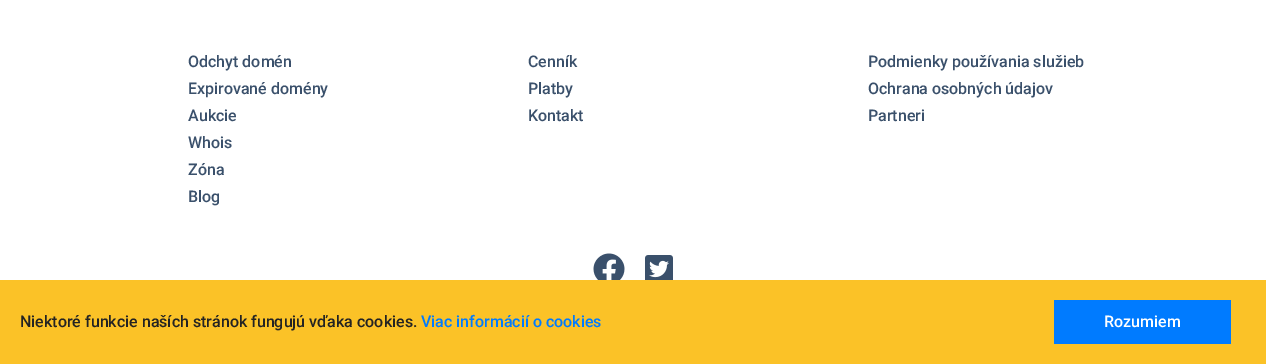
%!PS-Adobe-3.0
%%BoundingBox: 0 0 1266 364
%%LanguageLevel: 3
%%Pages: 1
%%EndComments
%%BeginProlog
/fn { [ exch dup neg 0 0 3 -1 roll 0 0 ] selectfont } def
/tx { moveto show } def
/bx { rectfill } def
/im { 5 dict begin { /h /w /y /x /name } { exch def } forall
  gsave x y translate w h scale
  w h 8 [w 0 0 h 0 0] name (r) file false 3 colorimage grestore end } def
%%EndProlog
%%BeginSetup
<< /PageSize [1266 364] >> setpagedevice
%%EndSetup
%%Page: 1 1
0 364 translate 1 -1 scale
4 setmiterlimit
1 setgray
0 0 1266 364 bx
/Roboto-Medium 16 fn
0.227 0.314 0.42 setrgbcolor
(Odchyt domén) 188 67 tx
(Expirované domény) 188 94 tx
(Aukcie) 188 121 tx
(Whois) 188 148 tx
(Zóna) 188 175 tx
(Blog) 188 202 tx
(Cenník) 528 67 tx
(Platby) 528 94 tx
(Kontakt) 528 121 tx
(Podmienky používania služieb) 868 67 tx
(Ochrana osobných údajov) 868 94 tx
(Partneri) 868 121 tx
(image0.raw) 593 253 32 27 im
(image1.raw) 645 255 28 25 im
0.984 0.761 0.153 setrgbcolor
0 280 1266 84 bx
0.137 setgray
(Niektoré funkcie naších stránok fungujú vďaka cookies.) 20 327 tx
0 0.482 1 setrgbcolor
(Viac informácií o cookies) 421 327 tx
1054 300 177 44 bx
1 setgray
(Rozumiem) 1104 327 tx
showpage
%%EOF
